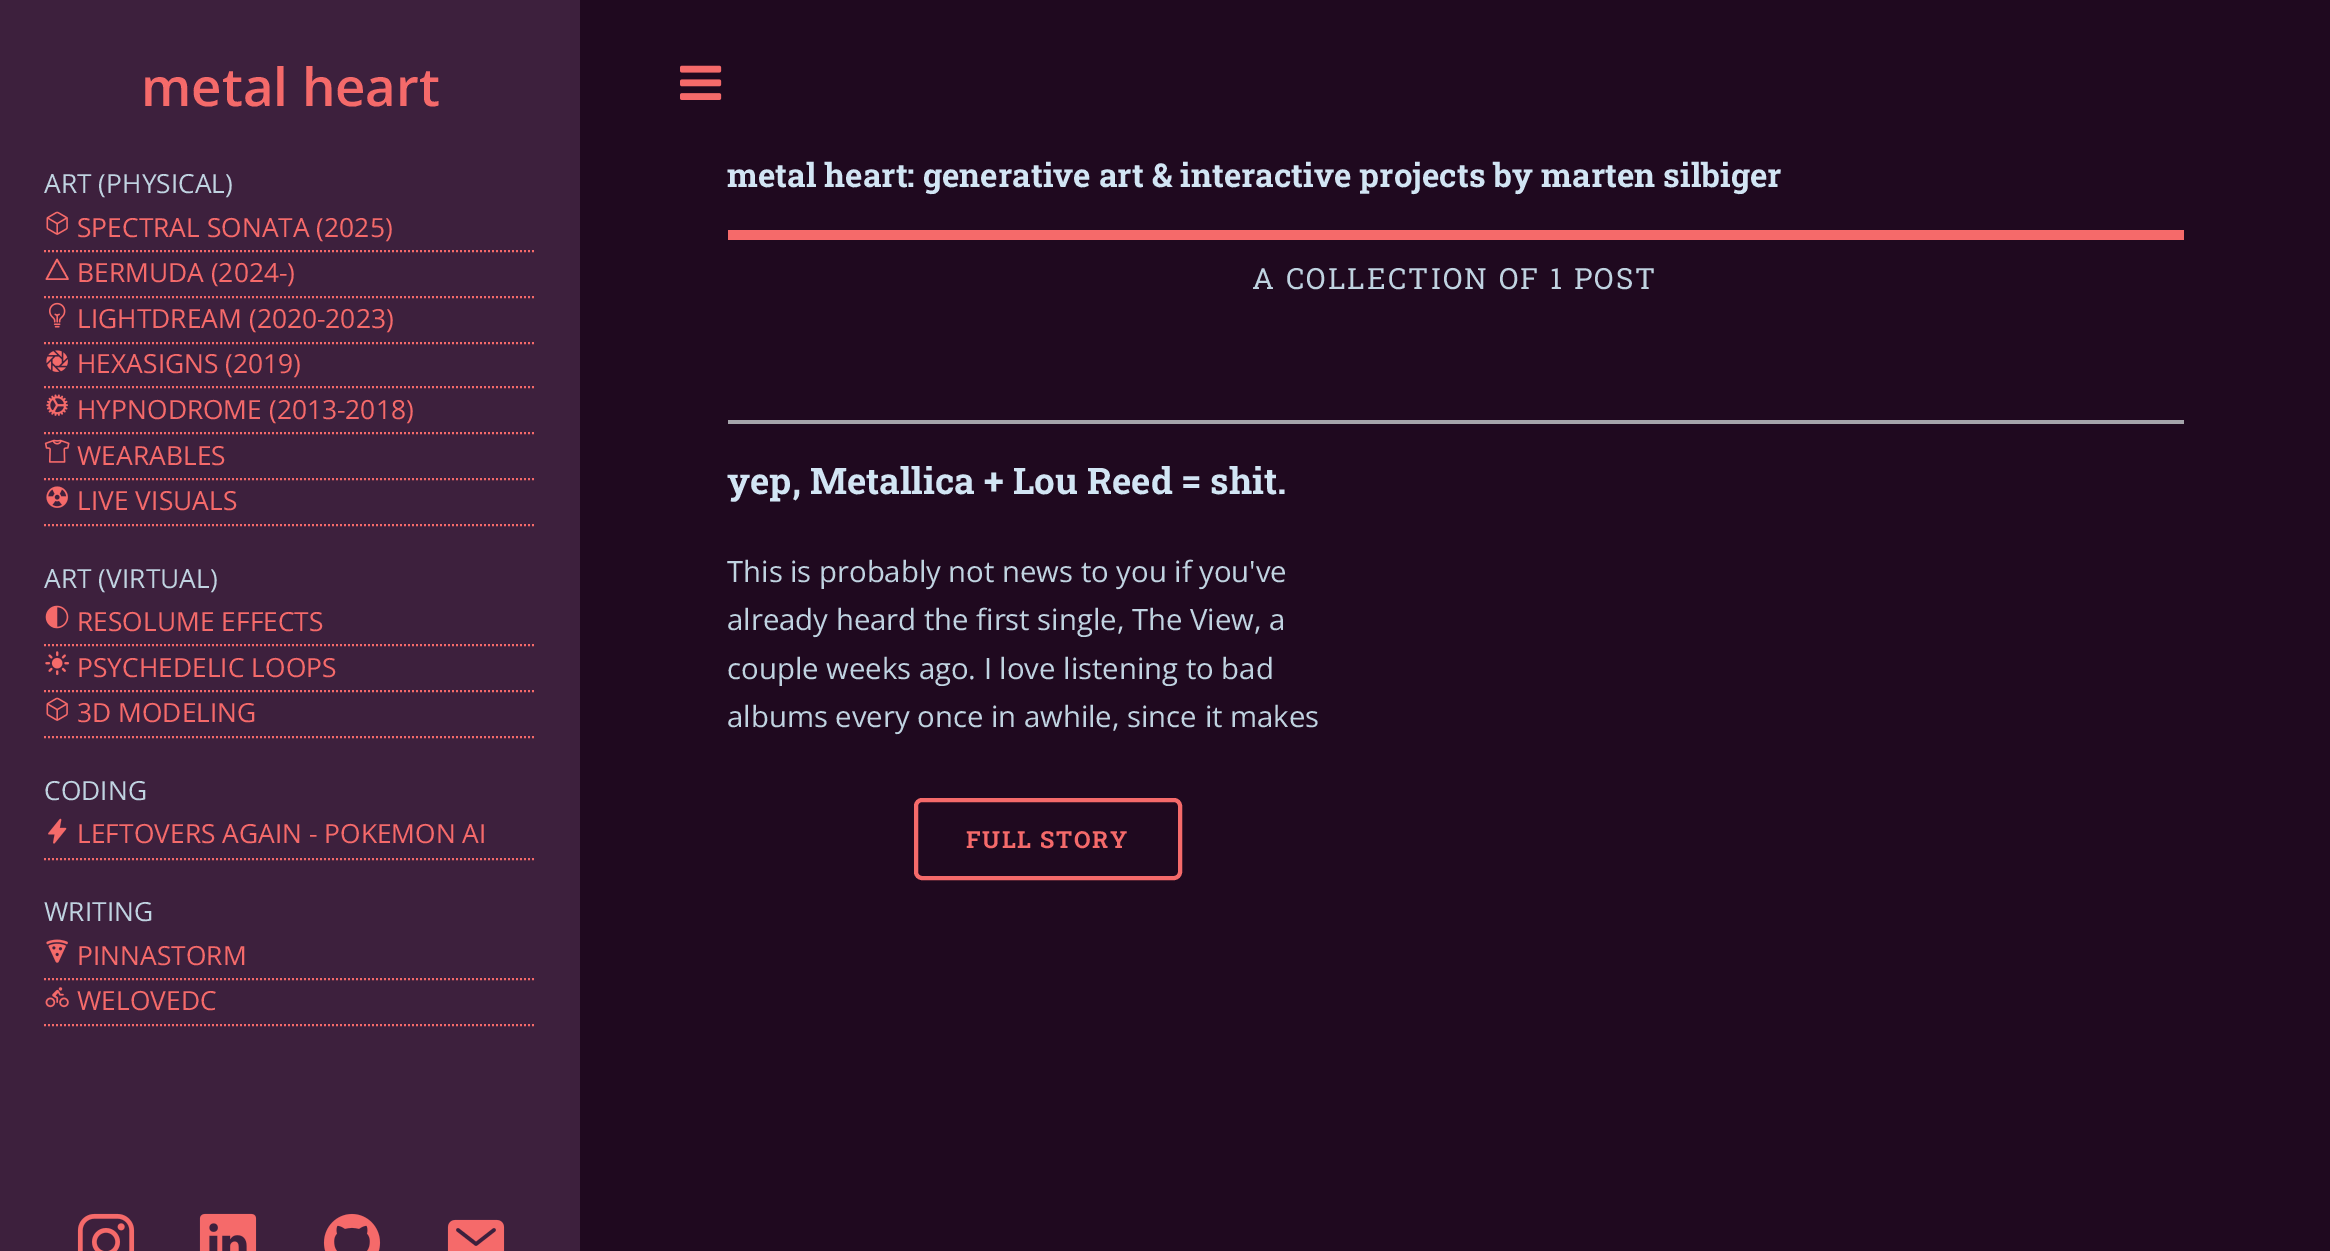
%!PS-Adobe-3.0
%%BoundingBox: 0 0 2330 1251
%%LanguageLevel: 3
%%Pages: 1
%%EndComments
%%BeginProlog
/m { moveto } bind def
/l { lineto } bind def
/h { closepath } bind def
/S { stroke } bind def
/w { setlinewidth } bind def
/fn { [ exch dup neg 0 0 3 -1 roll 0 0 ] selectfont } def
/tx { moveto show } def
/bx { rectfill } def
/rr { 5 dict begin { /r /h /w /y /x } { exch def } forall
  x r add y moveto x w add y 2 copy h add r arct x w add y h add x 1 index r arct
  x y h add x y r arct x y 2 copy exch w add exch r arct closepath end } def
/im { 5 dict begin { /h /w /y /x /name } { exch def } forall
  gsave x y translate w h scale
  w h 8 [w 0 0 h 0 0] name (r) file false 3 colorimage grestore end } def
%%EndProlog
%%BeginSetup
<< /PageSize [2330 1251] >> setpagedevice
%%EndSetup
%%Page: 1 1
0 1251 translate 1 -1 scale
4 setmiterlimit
0.122 0.035 0.122 setrgbcolor
0 0 2330 1251 bx
0.239 0.125 0.239 setrgbcolor
0 0 580 1251 bx
/OpenSans-SemiBold 52.75 fn
0.961 0.416 0.416 setrgbcolor
(metal heart) 141 106 tx
/OpenSans-Regular 26.4 fn
0.753 0.827 0.882 setrgbcolor
(ART \(PHYSICAL\)) 44 193 tx
0.961 0.416 0.416 setrgbcolor
2 w
[2 2] 0 setdash
44 251 m 536 251 l S
(image0.raw) 46 211 22 24 im
(SPECTRAL SONATA \(2025\)) 77 237 tx
44 297 m 536 297 l S
1.6 w
1 setlinecap
1 setlinejoin
[] 0 setdash
46.5 279 m 57 259.5 l 68 279 l h S
(BERMUDA \(2024-\)) 77 282 tx
2 w
0 setlinecap
0 setlinejoin
[2 2] 0 setdash
44 343 m 536 343 l S
(image1.raw) 49 302 17 26 im
(LIGHTDREAM \(2020-2023\)) 77 328 tx
44 387 m 536 387 l S
(image2.raw) 46 350 22 22 im
(HEXASIGNS \(2019\)) 77 373 tx
44 433 m 536 433 l S
(image3.raw) 46 394 22 22 im
(HYPNODROME \(2013-2018\)) 77 419 tx
44 479 m 536 479 l S
(image4.raw) 44 439 26 24 im
(WEARABLES) 77 465 tx
44 525 m 536 525 l S
(image5.raw) 46 486 22 22 im
(LIVE VISUALS) 77 510 tx
0.753 0.827 0.882 setrgbcolor
(ART \(VIRTUAL\)) 44 588 tx
0.961 0.416 0.416 setrgbcolor
44 645 m 536 645 l S
(image6.raw) 45 605 24 24 im
(RESOLUME EFFECTS) 77 631 tx
44 691 m 536 691 l S
(image7.raw) 45 651 25 25 im
(PSYCHEDELIC LOOPS) 77 677 tx
44 737 m 536 737 l S
(image0.raw) 46 697 22 24 im
(3D MODELING) 77 722 tx
0.753 0.827 0.882 setrgbcolor
(CODING) 44 800 tx
0.961 0.416 0.416 setrgbcolor
44 859 m 536 859 l S
(image8.raw) 48 818 19 26 im
(LEFTOVERS AGAIN - POKEMON AI) 77 843 tx
0.753 0.827 0.882 setrgbcolor
(WRITING) 44 921 tx
0.961 0.416 0.416 setrgbcolor
44 979 m 536 979 l S
(image9.raw) 46 939 22 24 im
(PINNASTORM) 77 965 tx
44 1025 m 536 1025 l S
(image10.raw) 45 987 24 21 im
(WELOVEDC) 77 1010 tx
(image11.raw) 77 1213 58 38 im
(image12.raw) 199 1213 58 38 im
(image13.raw) 323 1213 58 38 im
(image14.raw) 447 1219 58 32 im
(image15.raw) 680 65 42 35 im
728 230 1456 10 bx
/RobotoSlab-Bold 33 fn
0.824 0.898 0.957 setrgbcolor
(metal heart: generative art & interactive projects by marten silbiger) 727 187 tx
0.647 0.643 0.671 setrgbcolor
728 420 1456 4 bx
/RobotoSlab-Regular 29.3 fn
0.753 0.827 0.882 setrgbcolor
1252 289 m 2.2 0 (A COLLECTION OF 1 POST) ashow
/RobotoSlab-Bold 36.7 fn
0.824 0.898 0.957 setrgbcolor
(yep, Metallica + Lou Reed = shit.) 727 494 tx
/OpenSans-Regular 29.3 fn
0.753 0.827 0.882 setrgbcolor
(This is probably not news to you if you've) 727 582 tx
(already heard the first single, The View, a) 727 630 tx
(couple weeks ago. I love listening to bad) 727 679 tx
(albums every once in awhile, since it makes) 727 727 tx
0.961 0.416 0.416 setrgbcolor
4 w
[] 0 setdash
916 800 264 78 6 rr S
/RobotoSlab-Bold 23.5 fn
966 848 m 1.75 0 (FULL STORY) ashow
showpage
%%EOF
